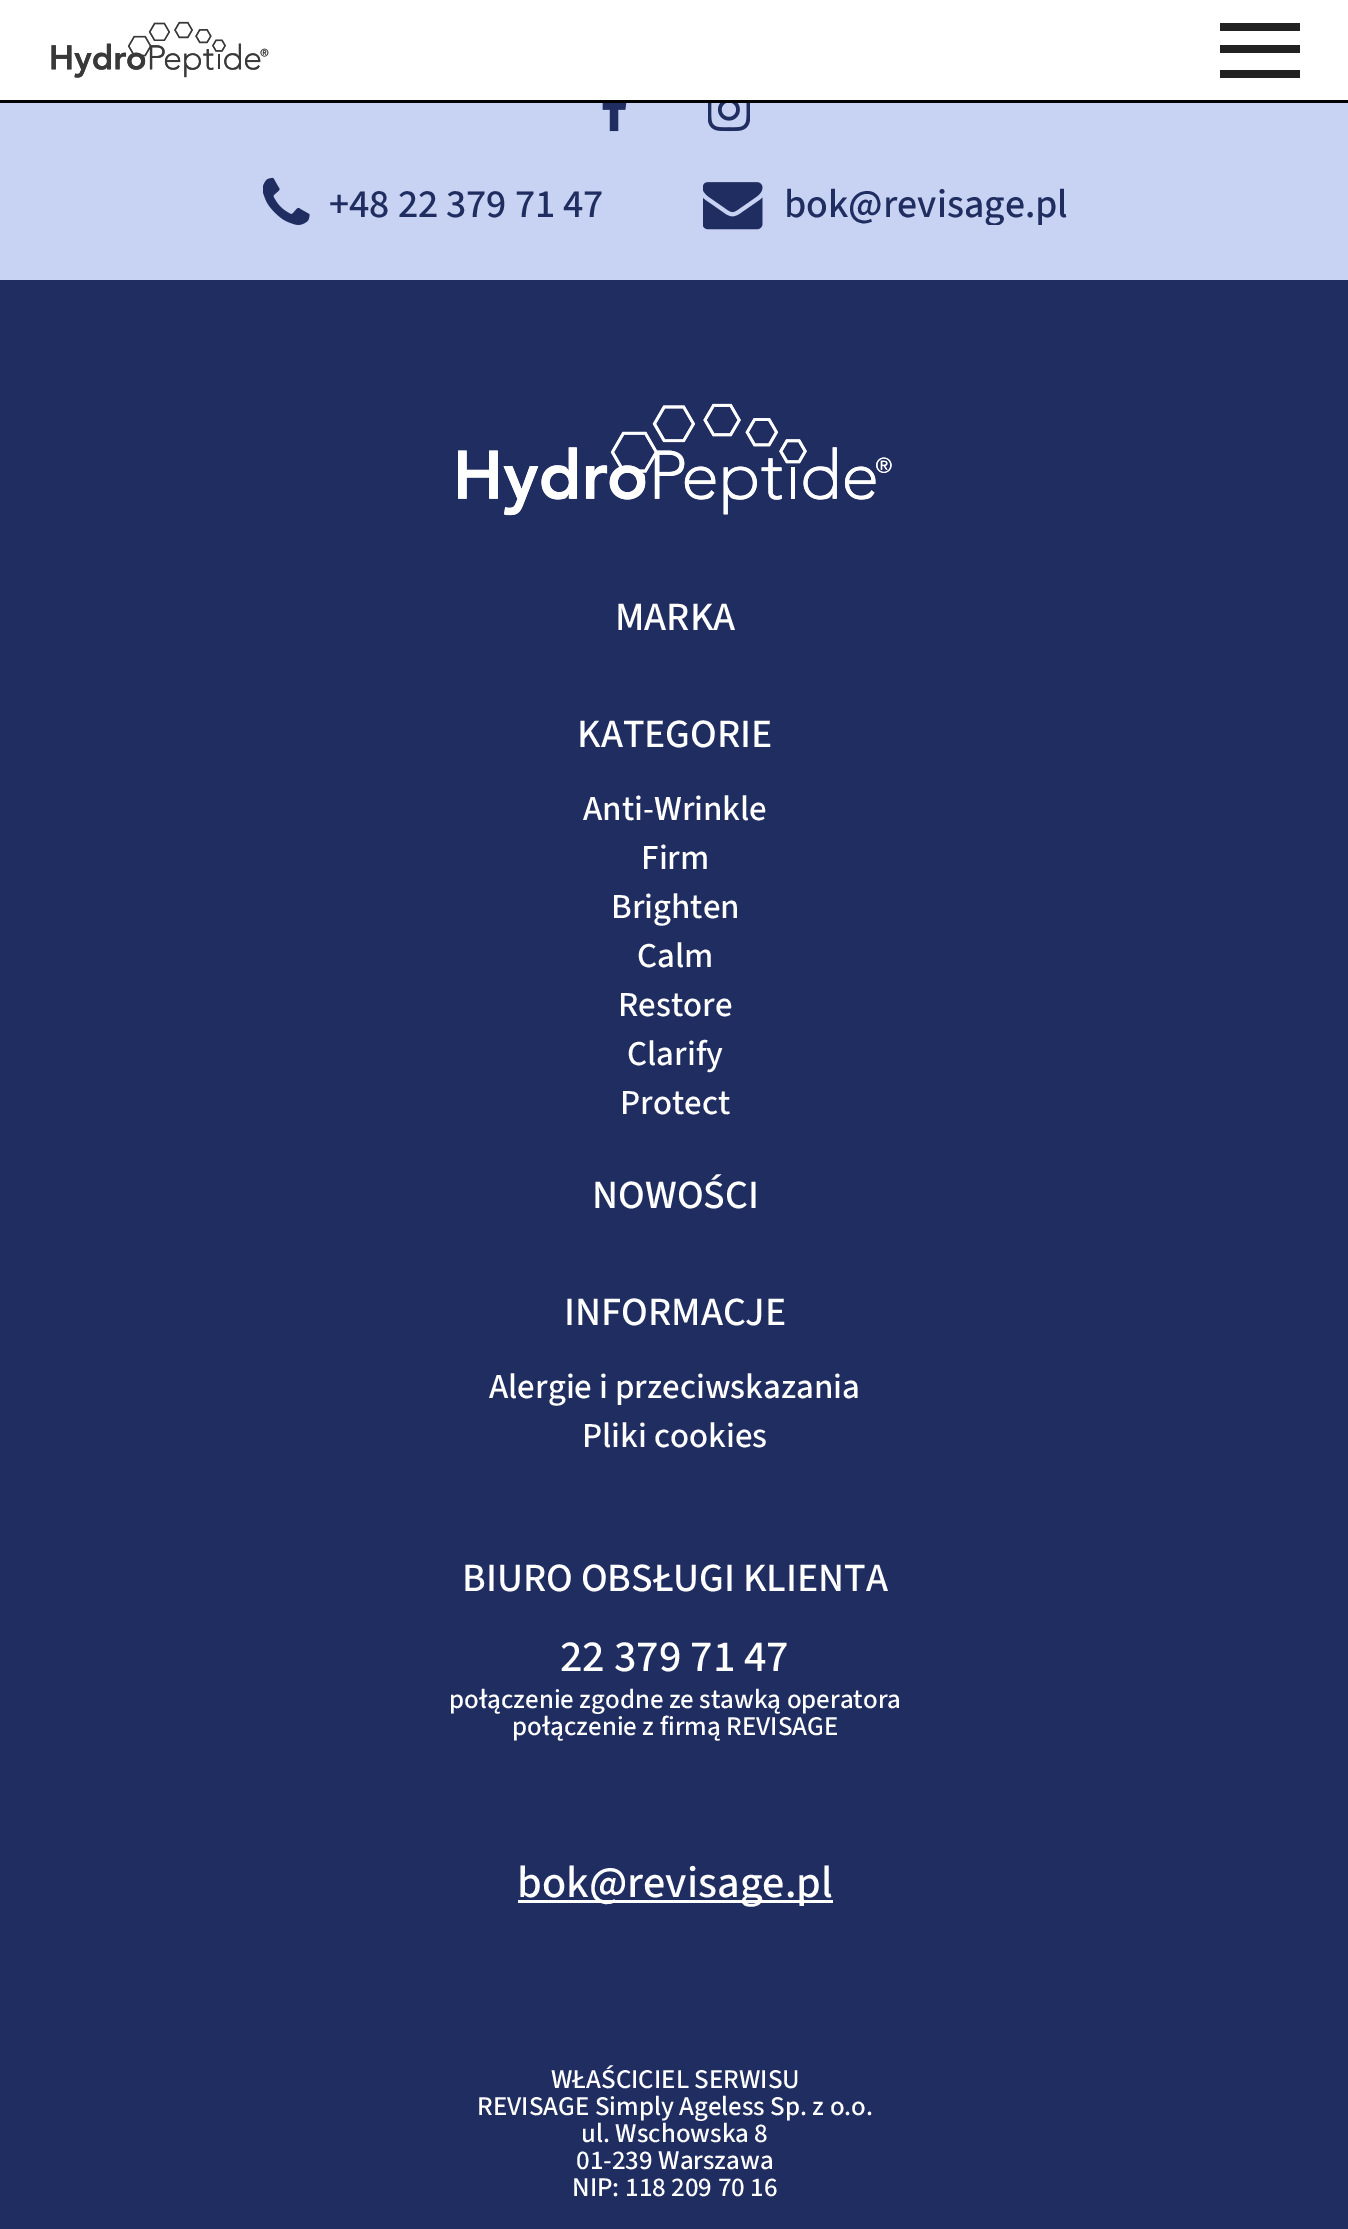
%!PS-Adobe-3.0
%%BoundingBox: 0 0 1348 2229
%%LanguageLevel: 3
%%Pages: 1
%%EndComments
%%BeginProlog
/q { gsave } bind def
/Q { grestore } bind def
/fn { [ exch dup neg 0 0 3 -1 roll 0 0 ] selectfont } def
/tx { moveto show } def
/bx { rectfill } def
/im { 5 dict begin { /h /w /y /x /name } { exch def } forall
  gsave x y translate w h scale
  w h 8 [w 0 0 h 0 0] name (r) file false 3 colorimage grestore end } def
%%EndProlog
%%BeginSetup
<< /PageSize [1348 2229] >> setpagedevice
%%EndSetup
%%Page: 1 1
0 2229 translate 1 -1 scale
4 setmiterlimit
0.125 0.176 0.376 setrgbcolor
0 0 1348 2229 bx
1 setgray
0 0 1348 100 bx
0 setgray
0 100 1348 3 bx
(image0.raw) 51 21 218 57 im
0.133 setgray
1220 23 80 8 bx
1220 45 80 8 bx
1220 70 80 8 bx
0.784 0.827 0.953 setrgbcolor
0 103 1348 177 bx
(image1.raw) 602 103 25 29 im
(image2.raw) 708 103 42 29 im
(image3.raw) 263 177 47 48 im
/SourceSans3-Medium 40 fn
0.125 0.176 0.376 setrgbcolor
(+48 22 379 71 47) 329 217 tx
(image4.raw) 703 182 60 48 im
q
785 185 283 40 rectclip
(bok@revisage.pl) 784 217 tx
Q
(image5.raw) 458 403 434 113 im
1 setgray
(MARKA) 615 630 tx
(KATEGORIE) 577 747 tx
/SourceSans3-Medium 35 fn
(Anti-Wrinkle) 583 820 tx
(Firm) 641 869 tx
(Brighten) 611 918 tx
(Calm) 637 967 tx
(Restore) 618 1016 tx
(Clarify) 627 1065 tx
(Protect) 620 1114 tx
/SourceSans3-Medium 40 fn
(NOWOŚCI) 592 1208 tx
(INFORMACJE) 564 1325 tx
/SourceSans3-Medium 35 fn
(Alergie i przeciwskazania) 489 1398 tx
(Pliki cookies) 582 1447 tx
/SourceSans3-Medium 40 fn
(BIURO OBSŁUGI KLIENTA) 462 1591 tx
/SourceSans3-Medium 44.5 fn
(22 379 71 47) 560 1671 tx
/SourceSans3-Medium 27 fn
(połączenie zgodne ze stawką operatora) 449 1708 tx
(połączenie z firmą REVISAGE) 512 1735 tx
518 1900 315 3 bx
/SourceSans3-Medium 44.5 fn
(bok@revisage.pl) 517 1897 tx
/SourceSans3-Medium 27 fn
(WŁAŚCICIEL SERWISU) 551 2088 tx
(REVISAGE Simply Ageless Sp. z o.o.) 477 2115 tx
(ul. Wschowska 8) 581 2142 tx
(01-239 Warszawa) 576 2169 tx
(NIP: 118 209 70 16) 572 2196 tx
showpage
%%EOF
